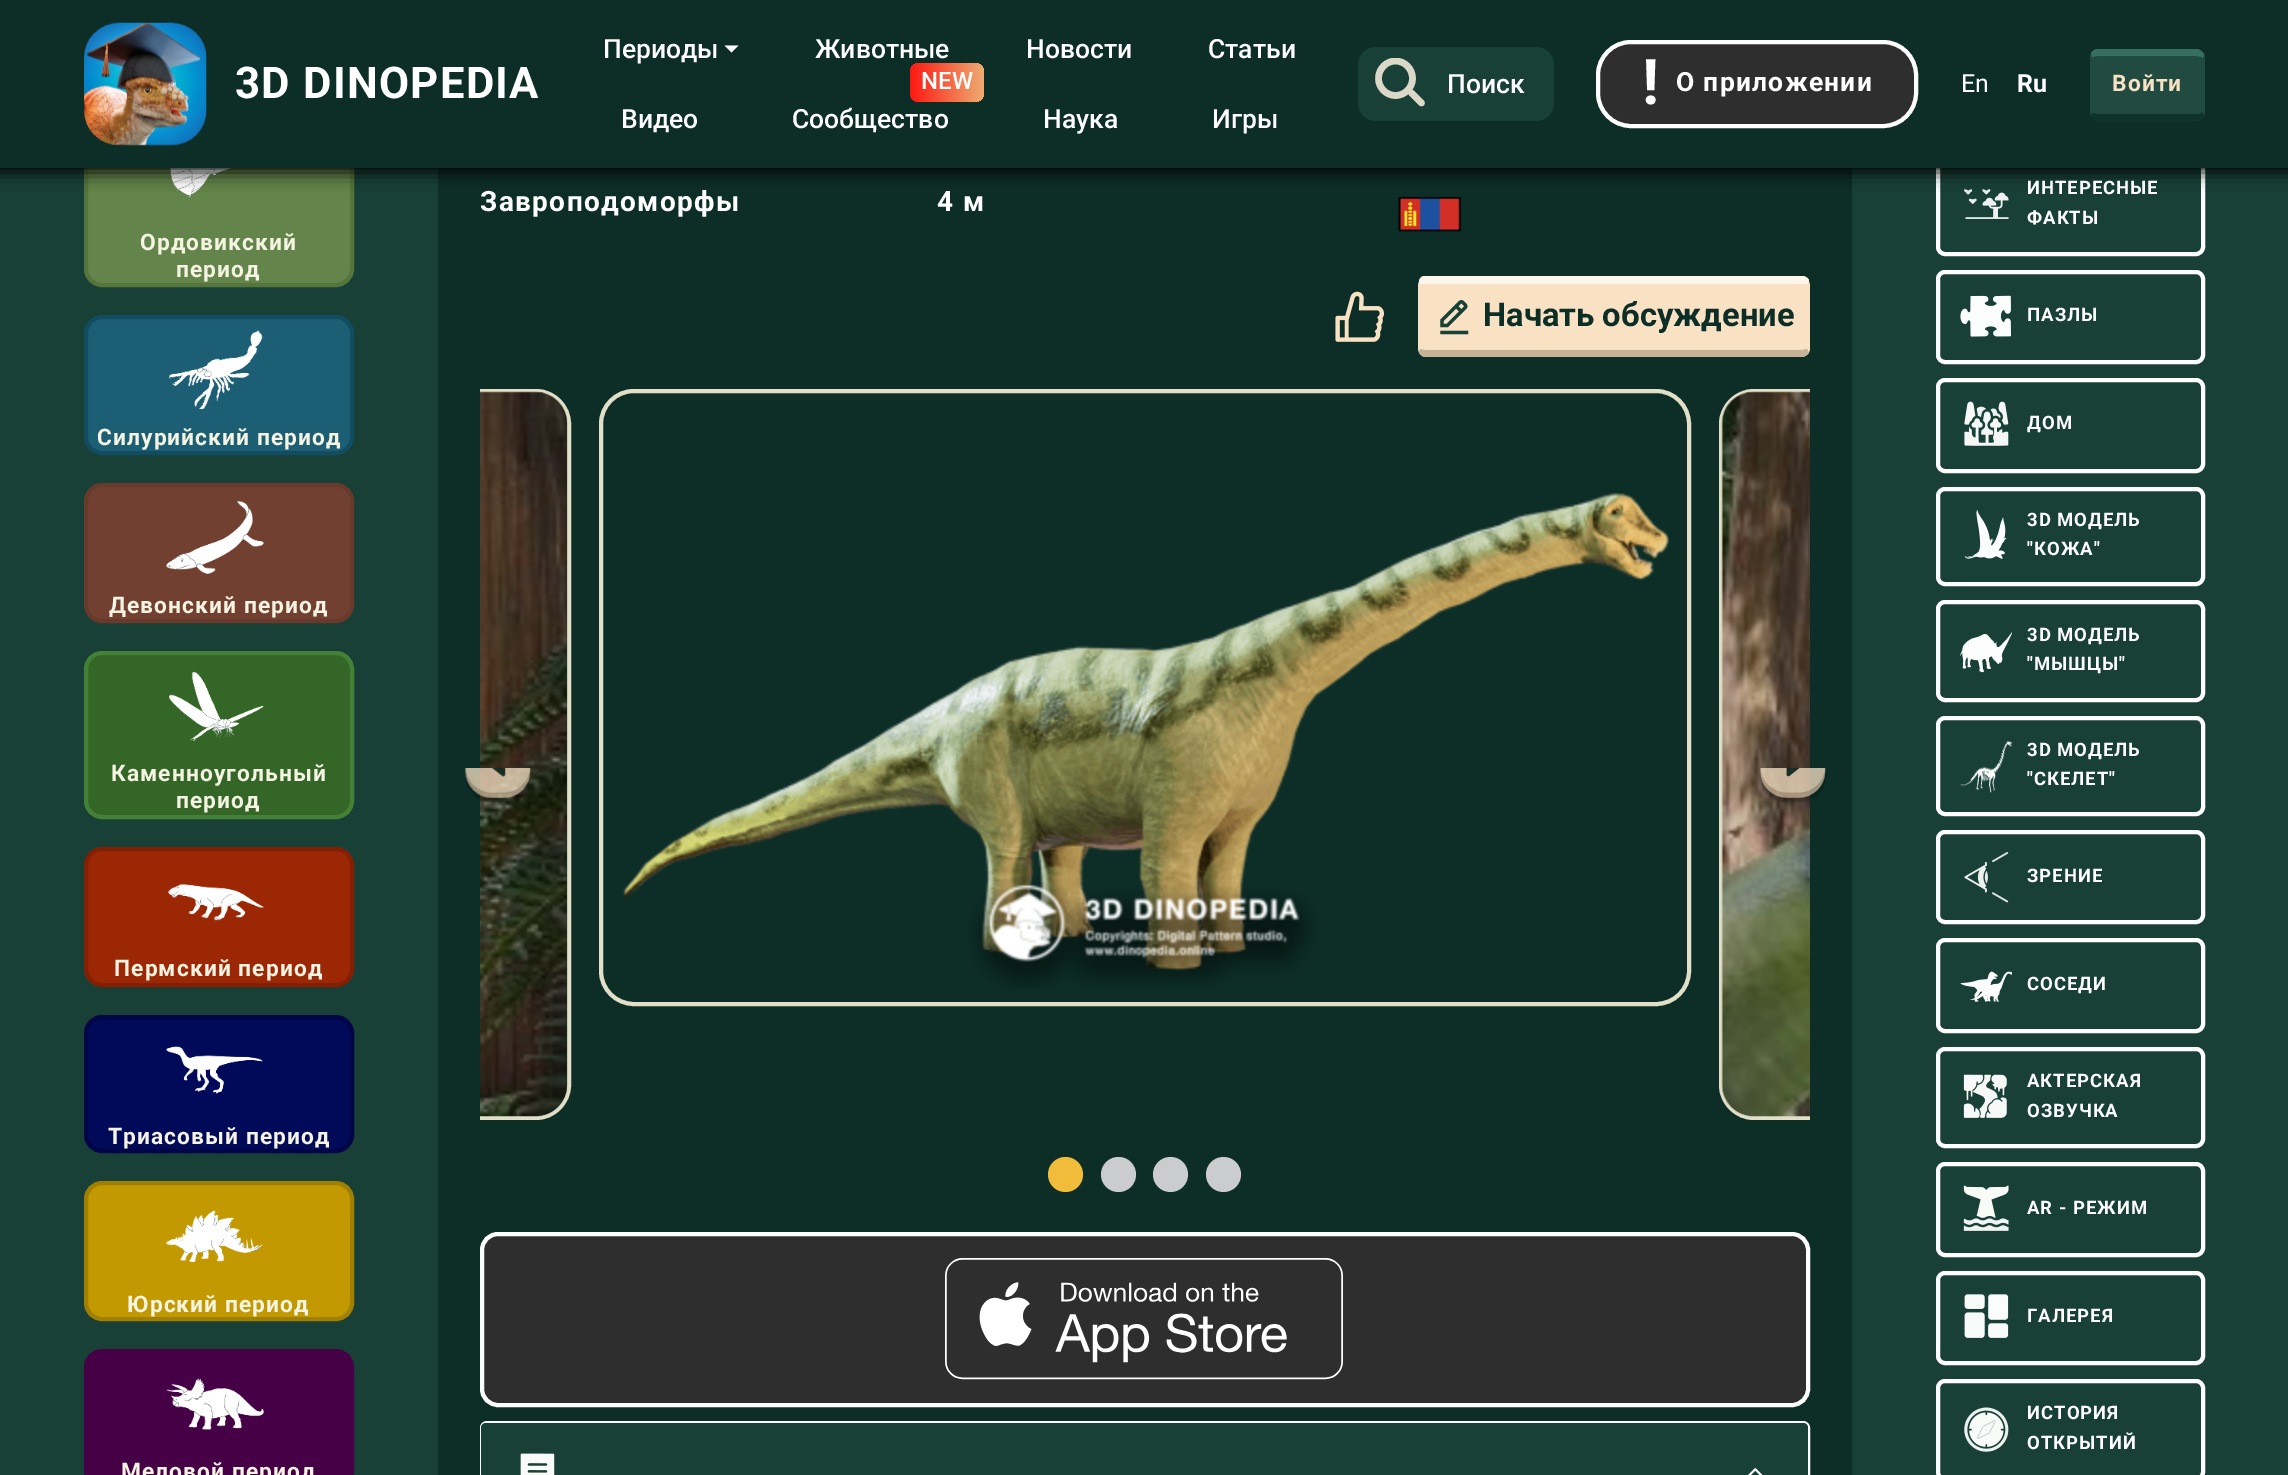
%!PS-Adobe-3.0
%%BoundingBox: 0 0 2288 1475
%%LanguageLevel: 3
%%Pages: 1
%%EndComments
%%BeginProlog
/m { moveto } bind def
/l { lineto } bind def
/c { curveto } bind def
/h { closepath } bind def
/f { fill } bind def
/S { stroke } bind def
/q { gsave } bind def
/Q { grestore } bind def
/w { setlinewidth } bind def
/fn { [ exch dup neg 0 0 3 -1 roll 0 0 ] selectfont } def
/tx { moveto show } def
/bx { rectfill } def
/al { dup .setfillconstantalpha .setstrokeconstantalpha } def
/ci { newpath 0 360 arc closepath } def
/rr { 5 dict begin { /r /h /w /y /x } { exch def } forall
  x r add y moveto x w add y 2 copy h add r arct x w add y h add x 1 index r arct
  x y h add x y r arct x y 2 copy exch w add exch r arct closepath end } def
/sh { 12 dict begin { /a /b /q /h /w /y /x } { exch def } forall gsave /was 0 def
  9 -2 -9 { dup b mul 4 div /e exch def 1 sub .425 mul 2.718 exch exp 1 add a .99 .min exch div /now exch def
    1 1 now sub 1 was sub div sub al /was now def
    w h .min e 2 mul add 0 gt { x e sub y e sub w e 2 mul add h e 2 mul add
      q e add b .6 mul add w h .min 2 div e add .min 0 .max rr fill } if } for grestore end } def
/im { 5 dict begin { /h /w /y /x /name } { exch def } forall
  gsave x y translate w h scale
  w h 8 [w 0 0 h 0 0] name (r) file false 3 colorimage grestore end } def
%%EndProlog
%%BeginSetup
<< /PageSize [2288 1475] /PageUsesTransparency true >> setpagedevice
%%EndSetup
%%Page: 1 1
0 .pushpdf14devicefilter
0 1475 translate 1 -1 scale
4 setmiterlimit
0.094 0.251 0.216 setrgbcolor
0 0 2288 1475 bx
0.388 0.518 0.29 setrgbcolor
86 123 266 162 16 rr q f Q
0.329 0.459 0.235 setrgbcolor
4 w
S
(image1.raw) 169 168 63 30 im
0.051 0.18 0.153 setrgbcolor
438 168 1414 1307 bx
(image9.raw) 1398 197 64 35 im
1 setgray
1938 156 265 98 7 rr S
(image20.raw) 1964 189 45 30 im
0 setgray
-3 -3 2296 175 0 9 1 sh
0.051 0.18 0.153 setrgbcolor
0 0 2288 168 bx
(image0.raw) 84 22 123 124 im
/Roboto-Bold 43.75 fn
1 setgray
235 98 m 1.25 0 (3D DINOPEDIA) ashow
/Roboto-Medium 26.5 fn
(Периоды) 603 58 tx
724.5 45.5 m 738.5 45.5 l 731.5 52.5 l h f
(Животные) 815 58 tx
(Новости) 1026 58 tx
(Статьи) 1208 58 tx
(Видео) 621 128 tx
q 910 63 74 39 9 rr clip newpath
<< /ShadingType 2 /ColorSpace /DeviceRGB /Coords [910 82 984 82] /Extend [true true] /Function << /FunctionType 2 /Domain [0 1] /C0 [0.992 0.094 0.071] /C1 [0.933 0.675 0.447] /N 1 >> >> shfill Q
/Roboto-Medium 24 fn
(NEW) 921 89 tx
/Roboto-Medium 26.5 fn
(Сообщество) 792 128 tx
(Наука) 1043 128 tx
(Игры) 1212 128 tx
0.094 0.251 0.216 setrgbcolor
1358 47 196 74 18 rr f
q
1374 58 52 52 rectclip
0.859 0.847 0.784 setrgbcolor
6.6 w
1412.5 78.5 m 1412.5 88 1404.5 95.5 1395.5 95.5 c 1386.5 95.5 1378.5 88 1378.5 78.5 c 1378.5 68.5 1386.5 61 1395.5 61 c 1404.5 61 1412.5 68.5 1412.5 78.5 c h S
Q
0.859 0.847 0.784 setrgbcolor
6.6 w
1 setlinecap
1411.5 93 m 1421.5 103 l S
1 setgray
(Поиск) 1447 93 tx
0.18 setgray
1598 42 318 84 33 rr q f Q
1 setgray
4 w
0 setlinecap
S
/Roboto-Bold 63 fn
1642 104 m 3 0 (!) ashow
/Roboto-Bold 26.5 fn
1676 91 m 1.25 0 (О приложении) ashow
/Roboto-Regular 25 fn
(En) 1961 92 tx
/Roboto-Bold 25 fn
(Ru) 2017 92 tx
0.129 0.294 0.255 setrgbcolor
2090 49 115 72 9 rr f
0.212 0.431 0.376 setrgbcolor
2098 49 m 2094 49 2092 51 2091 54 c 2092 57 l 2093 57 2095 56 2098 56 c 2196 56 l 2199 56 2202 57 2203 58 c 2204 54 l 2202 51 2199 49 2196 49 c h f
0.055 0.2 0.165 setrgbcolor
2096 121 m 2093 120 2092 118 2091 116 c 2092 113 l 2093 113 2095 114 2098 114 c 2196 114 l 2200 114 2202 113 2203 112 c 2204 116 l 2203 119 2201 120 2198 121 c h f
/Roboto-Bold 22.75 fn
0.976 0.886 0.769 setrgbcolor
2112 91 m 1.1 0 (Войти) ashow
0.961 0.953 0.886 setrgbcolor
140 250 m 1.1 0 (Ордовикский) ashow
176 277 m 1.1 0 (период) ashow
0.11 0.373 0.459 setrgbcolor
86 317 266 136 16 rr q f Q
0.071 0.298 0.376 setrgbcolor
S
(image2.raw) 169 330 94 80 im
0.961 0.953 0.886 setrgbcolor
97 445 m 1.1 0 (Силурийский период) ashow
0.447 0.251 0.192 setrgbcolor
86 485 266 136 16 rr q f Q
0.408 0.227 0.173 setrgbcolor
S
(image3.raw) 166 500 98 74 im
0.961 0.953 0.886 setrgbcolor
109 613 m 1.1 0 (Девонский период) ashow
0.204 0.4 0.153 setrgbcolor
86 653 266 164 16 rr q f Q
0.267 0.502 0.212 setrgbcolor
S
(image4.raw) 169 671 95 71 im
0.961 0.953 0.886 setrgbcolor
111 781 m 1.1 0 (Каменноугольный) ashow
176 808 m 1.1 0 (период) ashow
0.608 0.153 0.016 setrgbcolor
86 849 266 136 16 rr q f Q
0.514 0.125 0.012 setrgbcolor
S
(image5.raw) 168 884 96 37 im
0.961 0.953 0.886 setrgbcolor
114 976 m 1.1 0 (Пермский период) ashow
0.004 0.035 0.349 setrgbcolor
86 1017 266 134 16 rr q f Q
0 0.02 0.275 setrgbcolor
S
(image6.raw) 166 1046 97 48 im
0.961 0.953 0.886 setrgbcolor
108 1144 m 1.1 0 (Триасовый период) ashow
0.761 0.6 0.004 setrgbcolor
86 1183 266 136 16 rr q f Q
0.627 0.498 0.004 setrgbcolor
S
(image7.raw) 166 1210 97 52 im
0.961 0.953 0.886 setrgbcolor
127 1312 m 1.1 0 (Юрский период) ashow
0.271 0 0.275 setrgbcolor
86 1351 266 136 16 rr q f Q
0.275 0 0.275 setrgbcolor
S
(image8.raw) 166 1378 98 52 im
0.961 0.953 0.886 setrgbcolor
121 1479 m 1.1 0 (Меловой период) ashow
/Roboto-Bold 28 fn
1 setgray
480 211 m 1.4 0 (Завроподоморфы) ashow
937 211 m 1.4 0 (4 м) ashow
(image10.raw) 1335 291 50 51 im
0.976 0.886 0.769 setrgbcolor
1418 277 392 80 9 rr f
1 0.965 0.922 setrgbcolor
1426 284 m 1419 284 l 1419 281 l 1419 279 1421 277 1423 276 c 1804 276 l 1806 277 1808 278 1809 280 c 1808 284 l 1801 284 l h f
0.776 0.698 0.592 setrgbcolor
1426 357 m 1801 357 l 1804 357 1807 355 1809 353 c 1807 349 l 1806 349 1804 350 1801 350 c 1426 350 l 1423 350 1421 349 1420 349 c 1419 352 l 1420 355 1422 357 1426 357 c h f
(image11.raw) 1440 300 29 35 im
/Roboto-Bold 32.75 fn
0.051 0.18 0.153 setrgbcolor
(Начать обсуждение) 1483 326 tx
q
480 389 1330 731 rectclip
0.882 0.875 0.784 setrgbcolor
-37 391 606 727 33 rr S
Q
(image12.raw) 480 391 88 726 im
0.882 0.875 0.784 setrgbcolor
601 391 1088 613 33 rr S
(image13.raw) 622 493 1047 497 im
q
480 389 1330 731 rectclip
1721 391 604 727 33 rr S
Q
(image14.raw) 1721 391 89 726 im
(image15.raw) 465 768 66 35 im
(image16.raw) 1759 768 68 35 im
0.941 0.737 0.224 setrgbcolor
1065.5 1174.5 17.5 ci f
0.796 0.8 0.808 setrgbcolor
1118.5 1174.5 17.5 ci f
1170.5 1174.5 17.5 ci f
1223.5 1174.5 17.5 ci f
0.18 setgray
482 1234 1326 171 16 rr q f Q
1 setgray
S
(image17.raw) 945 1258 398 122 im
2 w
481 1422 1328 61 6 rr S
0.094 0.251 0.216 setrgbcolor
486 1423 m 1803 1423 l 1806 1423 1808 1425 1808 1428 c 1808 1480 l 481 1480 l 481 1428 l 481 1425 483 1423 486 1423 c h f
(image18.raw) 520 1453 35 22 im
(image19.raw) 1748 1468 15 7 im
/Roboto-Bold 18.5 fn
1 setgray
2027 194 m 1 0 (ИНТЕРЕСНЫЕ) ashow
2027 224 m 1 0 (ФАКТЫ) ashow
4 w
1938 272 265 90 7 rr S
(image21.raw) 1960 295 51 42 im
2027 321 m 1 0 (ПАЗЛЫ) ashow
1938 380 265 91 7 rr S
(image22.raw) 1964 401 45 45 im
2027 429 m 1 0 (ДОМ) ashow
1938 489 265 95 7 rr S
(image23.raw) 1964 509 43 50 im
2027 526 m 1 0 (3D МОДЕЛЬ) ashow
2027 555 m 1 0 ("КОЖА") ashow
1938 602 265 98 7 rr S
(image24.raw) 1960 632 52 41 im
2027 641 m 1 0 (3D МОДЕЛЬ) ashow
2027 670 m 1 0 ("МЫШЦЫ") ashow
1938 718 265 96 7 rr S
(image25.raw) 1960 741 52 52 im
2027 756 m 1 0 (3D МОДЕЛЬ) ashow
2027 785 m 1 0 ("СКЕЛЕТ") ashow
1938 832 265 90 7 rr S
(image26.raw) 1964 852 45 51 im
2027 882 m 1 0 (ЗРЕНИЕ) ashow
1938 940 265 91 7 rr S
(image27.raw) 1960 971 52 31 im
2027 990 m 1 0 (СОСЕДИ) ashow
1938 1049 265 97 7 rr S
(image28.raw) 1963 1074 44 44 im
2027 1087 m 1 0 (АКТЕРСКАЯ) ashow
2027 1117 m 1 0 (ОЗВУЧКА) ashow
1938 1164 265 91 7 rr S
(image29.raw) 1963 1185 46 46 im
2027 1214 m 1 0 (AR - РЕЖИМ) ashow
1938 1273 265 90 7 rr S
(image30.raw) 1964 1294 45 44 im
2027 1322 m 1 0 (ГАЛЕРЕЯ) ashow
1938 1381 265 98 7 rr S
(image31.raw) 1964 1407 45 45 im
2027 1419 m 1 0 (ИСТОРИЯ) ashow
2027 1449 m 1 0 (ОТКРЫТИЙ) ashow
.poppdf14devicefilter showpage
%%EOF
